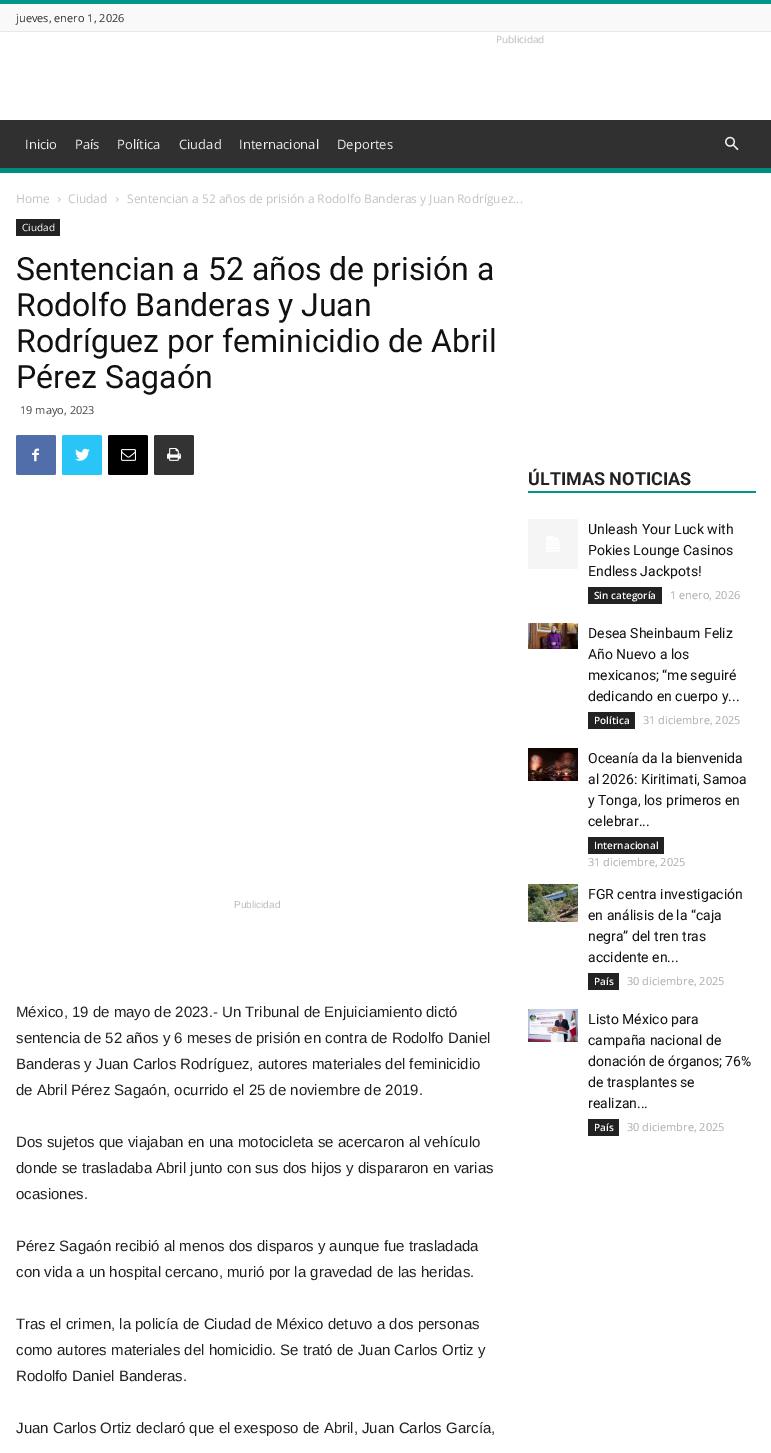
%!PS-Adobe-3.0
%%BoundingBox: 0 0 771 1453
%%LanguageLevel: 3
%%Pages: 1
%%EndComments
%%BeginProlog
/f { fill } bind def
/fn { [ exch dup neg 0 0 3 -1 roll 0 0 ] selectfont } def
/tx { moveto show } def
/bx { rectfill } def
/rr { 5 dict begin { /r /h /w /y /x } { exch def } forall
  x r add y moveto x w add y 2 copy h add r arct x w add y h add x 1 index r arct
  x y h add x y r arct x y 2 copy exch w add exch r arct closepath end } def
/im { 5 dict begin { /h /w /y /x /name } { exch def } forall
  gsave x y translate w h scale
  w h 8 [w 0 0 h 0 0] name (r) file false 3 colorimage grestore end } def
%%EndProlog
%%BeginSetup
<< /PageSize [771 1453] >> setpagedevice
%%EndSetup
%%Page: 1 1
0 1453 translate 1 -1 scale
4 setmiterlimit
1 setgray
0 0 771 1453 bx
0.976 setgray
0 4 771 27 bx
0 0.588 0.533 setrgbcolor
0 0 771 4 bx
0.914 setgray
0 31 771 1 bx
/OpenSans-Regular 11 fn
0.184 setgray
(jueves, enero 1, 2026) 16 22 tx
/OpenSans-Regular 10 fn
0.733 setgray
(Publicidad) 496 43 tx
0.188 setgray
0 120 771 48 bx
/OpenSans-Regular 13 fn
0.937 setgray
(Inicio) 25 149 tx
(País) 75 149 tx
(Política) 117 149 tx
(Ciudad) 179 149 tx
(Internacional) 239 149 tx
(Deportes) 337 149 tx
(image0.raw) 725 136 14 15 im
0 0.588 0.533 setrgbcolor
0 168 771 5 bx
(image1.raw) 0 168 771 5 im
/OpenSans-Regular 12 fn
0.765 setgray
(Home) 16 203 tx
(image2.raw) 58 197 3 5 im
(Ciudad) 68 203 tx
(image2.raw) 116 197 3 5 im
(Sentencian a 52 años de prisión a Rodolfo Banderas y Juan Rodríguez...) 127 203 tx
0.133 setgray
16 219 44 17 bx
/OpenSans-Regular 10 fn
1 setgray
(Ciudad) 22 231 tx
/Roboto-Regular 32 fn
0.067 setgray
(Sentencian a 52 años de prisión a) 16 280 tx
(Rodolfo Banderas y Juan) 16 316 tx
(Rodríguez por feminicidio de Abril) 16 352 tx
(Pérez Sagaón) 16 388 tx
/OpenSans-Regular 11 fn
0.267 setgray
(19 mayo, 2023) 20 414 tx
0.318 0.431 0.671 setrgbcolor
16 435 40 40 2 rr f
(image3.raw) 32 448 7 14 im
0.161 0.773 0.965 setrgbcolor
62 435 40 40 2 rr f
(image4.raw) 75 448 15 13 im
0 setgray
108 435 40 40 2 rr f
(image5.raw) 121 449 15 12 im
0.2 setgray
154 435 40 40 2 rr f
(image6.raw) 167 448 14 13 im
/LiberationSans-Regular 10 fn
0.733 setgray
(Publicidad) 234 908 tx
/LiberationSans-Regular 15 fn
0.133 setgray
(México, 19 de mayo de 2023.- Un Tribunal de Enjuiciamiento dictó) 16 1017 tx
(sentencia de 52 años y 6 meses de prisión en contra de Rodolfo Daniel) 16 1043 tx
(Banderas y Juan Carlos Rodríguez, autores materiales del feminicidio) 16 1069 tx
(de Abril Pérez Sagaón, ocurrido el 25 de noviembre de 2019.) 16 1095 tx
(Dos sujetos que viajaban en una motocicleta se acercaron al vehículo) 16 1147 tx
(donde se trasladaba Abril junto con sus dos hijos y dispararon en varias) 16 1173 tx
(ocasiones.) 16 1199 tx
(Pérez Sagaón recibió al menos dos disparos y aunque fue trasladada) 16 1251 tx
(con vida a un hospital cercano, murió por la gravedad de las heridas.) 16 1277 tx
(Tras el crimen, la policía de Ciudad de México detuvo a dos personas) 16 1329 tx
(como autores materiales del homicidio. Se trató de Juan Carlos Ortiz y) 16 1355 tx
(Rodolfo Daniel Banderas.) 16 1381 tx
(Juan Carlos Ortiz declaró que el exesposo de Abril, Juan Carlos García,) 16 1433 tx
0 0.588 0.533 setrgbcolor
528 491 228 2 bx
/Roboto-Bold 18 fn
0.133 setgray
(ÚLTIMAS NOTICIAS) 528 485 tx
(image7.raw) 528 519 50 50 im
/Roboto-Regular 14 fn
0.067 setgray
(Unleash Your Luck with) 588 534 tx
(Pokies Lounge Casinos) 588 555 tx
(Endless Jackpots!) 588 576 tx
0.133 setgray
588 587 74 17 bx
/OpenSans-SemiBold 10 fn
1 setgray
(Sin categoría) 594 599 tx
/OpenSans-Regular 11 fn
0.667 setgray
(1 enero, 2026) 670 599 tx
(image8.raw) 528 623 50 26 im
/Roboto-Regular 14 fn
0.067 setgray
(Desea Sheinbaum Feliz) 588 638 tx
(Año Nuevo a los) 588 659 tx
(mexicanos; “me seguiré) 588 680 tx
(dedicando en cuerpo y...) 588 701 tx
0.133 setgray
588 712 47 17 bx
/OpenSans-SemiBold 10 fn
1 setgray
(Política) 594 724 tx
/OpenSans-Regular 11 fn
0.667 setgray
(31 diciembre, 2025) 643 724 tx
(image9.raw) 528 748 50 33 im
/Roboto-Regular 14 fn
0.067 setgray
(Oceanía da la bienvenida) 588 763 tx
(al 2026: Kiritimati, Samoa) 588 784 tx
(y Tonga, los primeros en) 588 805 tx
(celebrar...) 588 826 tx
0.133 setgray
588 837 76 17 bx
/OpenSans-SemiBold 10 fn
1 setgray
(Internacional) 594 849 tx
/OpenSans-Regular 11 fn
0.667 setgray
(31 diciembre, 2025) 588 866 tx
(image10.raw) 528 884 50 38 im
/Roboto-Regular 14 fn
0.067 setgray
(FGR centra investigación) 588 899 tx
(en análisis de la “caja) 588 920 tx
(negra” del tren tras) 588 941 tx
(accidente en...) 588 962 tx
0.133 setgray
588 973 31 17 bx
/OpenSans-SemiBold 10 fn
1 setgray
(País) 594 985 tx
/OpenSans-Regular 11 fn
0.667 setgray
(30 diciembre, 2025) 627 985 tx
(image11.raw) 528 1009 50 33 im
/Roboto-Regular 14 fn
0.067 setgray
(Listo México para) 588 1024 tx
(campaña nacional de) 588 1045 tx
(donación de órganos; 76%) 588 1066 tx
(de trasplantes se) 588 1087 tx
(realizan...) 588 1108 tx
0.133 setgray
588 1119 31 17 bx
/OpenSans-SemiBold 10 fn
1 setgray
(País) 594 1131 tx
/OpenSans-Regular 11 fn
0.667 setgray
(30 diciembre, 2025) 627 1131 tx
showpage
%%EOF
